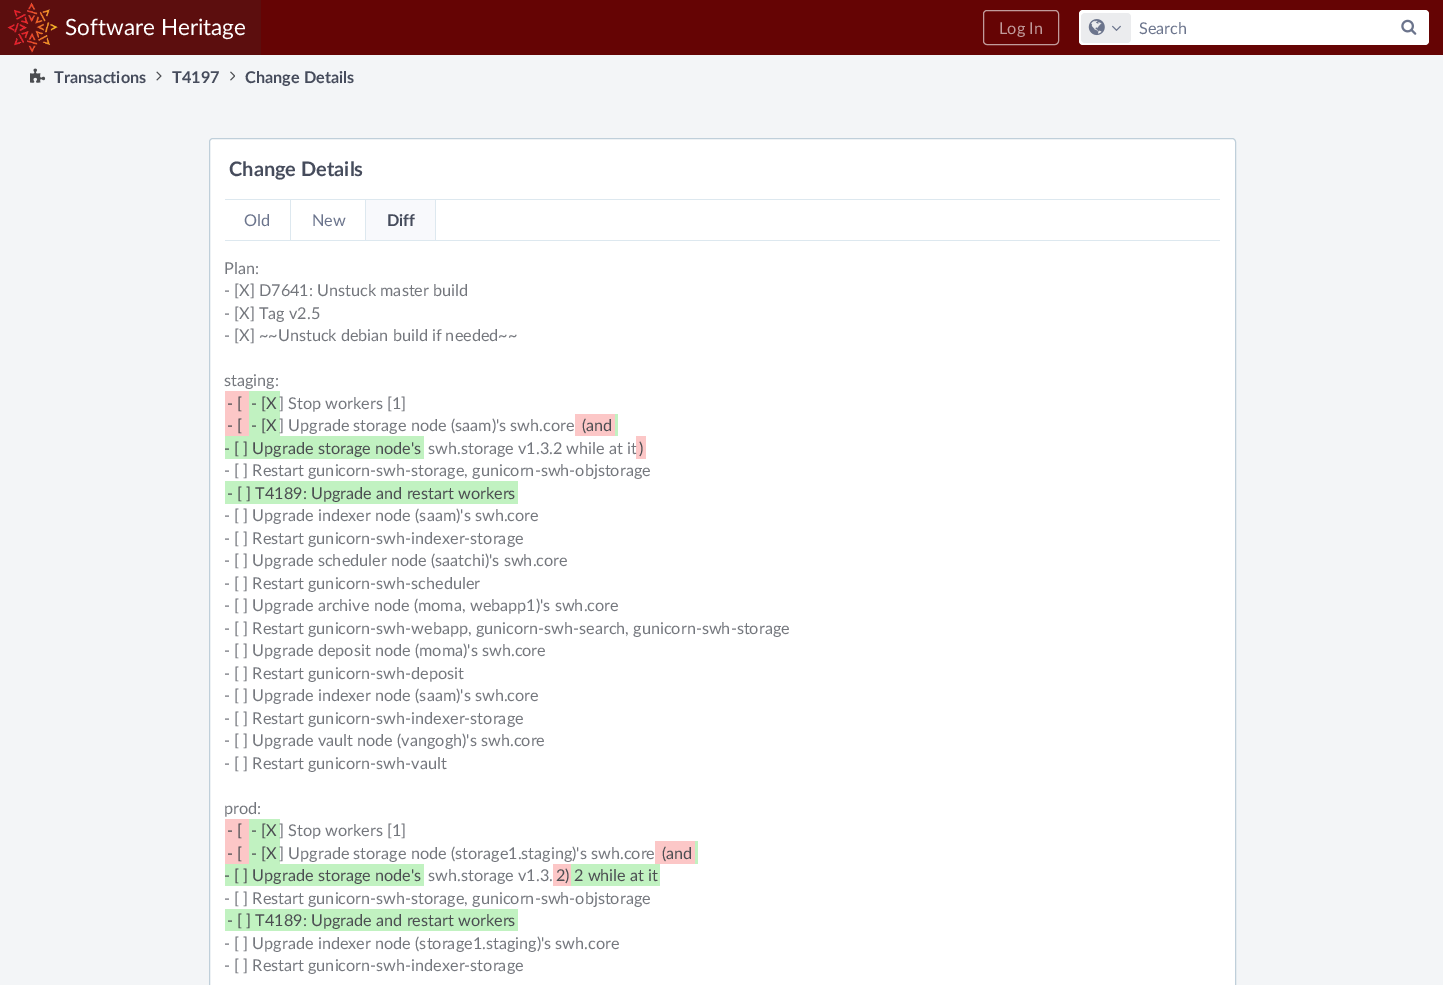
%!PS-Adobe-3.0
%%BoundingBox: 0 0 1443 985
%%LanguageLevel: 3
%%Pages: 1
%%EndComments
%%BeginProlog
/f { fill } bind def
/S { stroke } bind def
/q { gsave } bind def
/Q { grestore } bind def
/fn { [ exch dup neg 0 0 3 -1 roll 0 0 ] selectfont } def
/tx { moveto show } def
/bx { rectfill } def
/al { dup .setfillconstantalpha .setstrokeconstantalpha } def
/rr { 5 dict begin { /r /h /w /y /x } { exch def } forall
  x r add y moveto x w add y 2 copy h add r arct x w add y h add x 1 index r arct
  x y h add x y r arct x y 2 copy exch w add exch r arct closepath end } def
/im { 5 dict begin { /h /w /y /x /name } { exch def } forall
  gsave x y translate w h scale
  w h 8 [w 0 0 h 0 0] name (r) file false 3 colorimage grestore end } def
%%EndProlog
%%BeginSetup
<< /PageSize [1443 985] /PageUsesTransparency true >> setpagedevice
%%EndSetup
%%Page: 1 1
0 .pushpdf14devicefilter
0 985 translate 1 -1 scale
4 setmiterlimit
0.953 0.961 0.969 setrgbcolor
0 0 1443 985 bx
0.396 0.016 0.016 setrgbcolor
261 0 1182 55 bx
0.361 0.055 0.055 setrgbcolor
0 0 261 55 bx
(image0.raw) 7 2 51 51 im
/Lato-Regular 22.5 fn
1 setgray
(Software Heritage) 65 35 tx
0.757 0.608 0.608 setrgbcolor
983.5 10.5 75 34 3.5 rr S
/Lato-Regular 16.25 fn
(Log In) 999 34 tx
1 setgray
1079 10 350 35 4 rr f
0.922 0.925 0.933 setrgbcolor
1081 13 50 30 4 rr f
(image1.raw) 1088 19 17 17 im
(image2.raw) 1112 25 9 6 im
0.42 0.455 0.549 setrgbcolor
(Search) 1139 34 tx
(image3.raw) 1401 19 16 16 im
(image4.raw) 30 68 16 15 im
/Lato-Bold 16.25 fn
0.275 0.298 0.361 setrgbcolor
(Transactions) 54 83 tx
(image5.raw) 156 71 6 10 im
(T4197) 172 83 tx
(image6.raw) 230 71 5 10 im
(Change Details) 245 83 tx
1 setgray
209.5 138.5 1026 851 3.5 rr q f Q
0.749 0.812 0.855 setrgbcolor
S
0.867 0.91 0.937 setrgbcolor
225 199 995 1 bx
/Lato-Bold 20 fn
0.275 0.298 0.361 setrgbcolor
(Change Details) 229 176 tx
0.867 0.91 0.937 setrgbcolor
225 240 995 1 bx
290 200 1 40 bx
/Lato-Regular 16.25 fn
0.42 0.455 0.549 setrgbcolor
(Old) 244 226 tx
0.867 0.91 0.937 setrgbcolor
365 200 1 40 bx
0.42 0.455 0.549 setrgbcolor
(New) 312 226 tx
0.867 0.91 0.937 setrgbcolor
435 200 1 40 bx
0.973 0.976 0.988 setrgbcolor
366 200 69 40 bx
/Lato-Bold 16.25 fn
0.275 0.298 0.361 setrgbcolor
(Diff) 387 226 tx
/Lato-Regular 16.25 fn
0.455 0.467 0.49 setrgbcolor
(Plan:) 224 274 tx
(- [X] D7641: Unstuck master build) 224 296 tx
(- [X] Tag v2.5) 224 319 tx
(- [X] ~~Unstuck debian build if needed~~) 224 341 tx
(staging:) 224 386 tx
0.988 0.78 0.78 setrgbcolor
225 391 24 45 bx
0.294 0.302 0.318 setrgbcolor
(- [) 227 409 tx
0.757 0.949 0.757 setrgbcolor
249 391 31 45 bx
0.294 0.302 0.318 setrgbcolor
(- [X) 251 409 tx
0.455 0.467 0.49 setrgbcolor
(] Stop workers [1]) 279 409 tx
0.294 0.302 0.318 setrgbcolor
(- [) 227 431 tx
(- [X) 251 431 tx
0.455 0.467 0.49 setrgbcolor
(] Upgrade storage node \(saam\)'s swh.core) 279 431 tx
0.988 0.78 0.78 setrgbcolor
575 414 40 22 bx
0.294 0.302 0.318 setrgbcolor
(\(and) 582 431 tx
0.757 0.949 0.757 setrgbcolor
225 436 199 23 bx
0.294 0.302 0.318 setrgbcolor
(- [ ] Upgrade storage node's) 224 454 tx
0.757 0.949 0.757 setrgbcolor
615 414 3 22 bx
0.455 0.467 0.49 setrgbcolor
(swh.storage v1.3.2 while at it) 428 454 tx
0.7 al
0.984 0.686 0.686 setrgbcolor
636 436 10 23 bx
1 al
0.294 0.302 0.318 setrgbcolor
(\)) 639 454 tx
0.455 0.467 0.49 setrgbcolor
(- [ ] Restart gunicorn-swh-storage, gunicorn-swh-objstorage) 224 476 tx
0.757 0.949 0.757 setrgbcolor
225 481 293 23 bx
0.294 0.302 0.318 setrgbcolor
(- [ ] T4189: Upgrade and restart workers) 227 499 tx
0.455 0.467 0.49 setrgbcolor
(- [ ] Upgrade indexer node \(saam\)'s swh.core) 224 521 tx
(- [ ] Restart gunicorn-swh-indexer-storage) 224 544 tx
(- [ ] Upgrade scheduler node \(saatchi\)'s swh.core) 224 566 tx
(- [ ] Restart gunicorn-swh-scheduler) 224 589 tx
(- [ ] Upgrade archive node \(moma, webapp1\)'s swh.core) 224 611 tx
(- [ ] Restart gunicorn-swh-webapp, gunicorn-swh-search, gunicorn-swh-storage) 224 634 tx
(- [ ] Upgrade deposit node \(moma\)'s swh.core) 224 656 tx
(- [ ] Restart gunicorn-swh-deposit) 224 679 tx
(- [ ] Upgrade indexer node \(saam\)'s swh.core) 224 701 tx
(- [ ] Restart gunicorn-swh-indexer-storage) 224 724 tx
(- [ ] Upgrade vault node \(vangogh\)'s swh.core) 224 746 tx
(- [ ] Restart gunicorn-swh-vault) 224 769 tx
(prod:) 224 814 tx
0.988 0.78 0.78 setrgbcolor
225 819 24 45 bx
0.294 0.302 0.318 setrgbcolor
(- [) 227 836 tx
0.757 0.949 0.757 setrgbcolor
249 819 31 45 bx
0.294 0.302 0.318 setrgbcolor
(- [X) 251 836 tx
0.455 0.467 0.49 setrgbcolor
(] Stop workers [1]) 279 836 tx
0.294 0.302 0.318 setrgbcolor
(- [) 227 859 tx
(- [X) 251 859 tx
0.455 0.467 0.49 setrgbcolor
(] Upgrade storage node \(storage1.staging\)'s swh.core) 279 859 tx
0.988 0.78 0.78 setrgbcolor
655 841 40 23 bx
0.294 0.302 0.318 setrgbcolor
(\(and) 662 859 tx
0.757 0.949 0.757 setrgbcolor
225 864 199 22 bx
0.294 0.302 0.318 setrgbcolor
(- [ ] Upgrade storage node's) 224 881 tx
0.757 0.949 0.757 setrgbcolor
695 841 3 23 bx
0.455 0.467 0.49 setrgbcolor
(swh.storage v1.3.) 428 881 tx
0.988 0.78 0.78 setrgbcolor
553 864 18 22 bx
0.294 0.302 0.318 setrgbcolor
(2\)) 556 881 tx
0.757 0.949 0.757 setrgbcolor
571 864 89 22 bx
0.294 0.302 0.318 setrgbcolor
(2 while at it) 574 881 tx
0.455 0.467 0.49 setrgbcolor
(- [ ] Restart gunicorn-swh-storage, gunicorn-swh-objstorage) 224 904 tx
0.757 0.949 0.757 setrgbcolor
225 909 293 22 bx
0.294 0.302 0.318 setrgbcolor
(- [ ] T4189: Upgrade and restart workers) 227 926 tx
0.455 0.467 0.49 setrgbcolor
(- [ ] Upgrade indexer node \(storage1.staging\)'s swh.core) 224 949 tx
(- [ ] Restart gunicorn-swh-indexer-storage) 224 971 tx
.poppdf14devicefilter showpage
%%EOF
